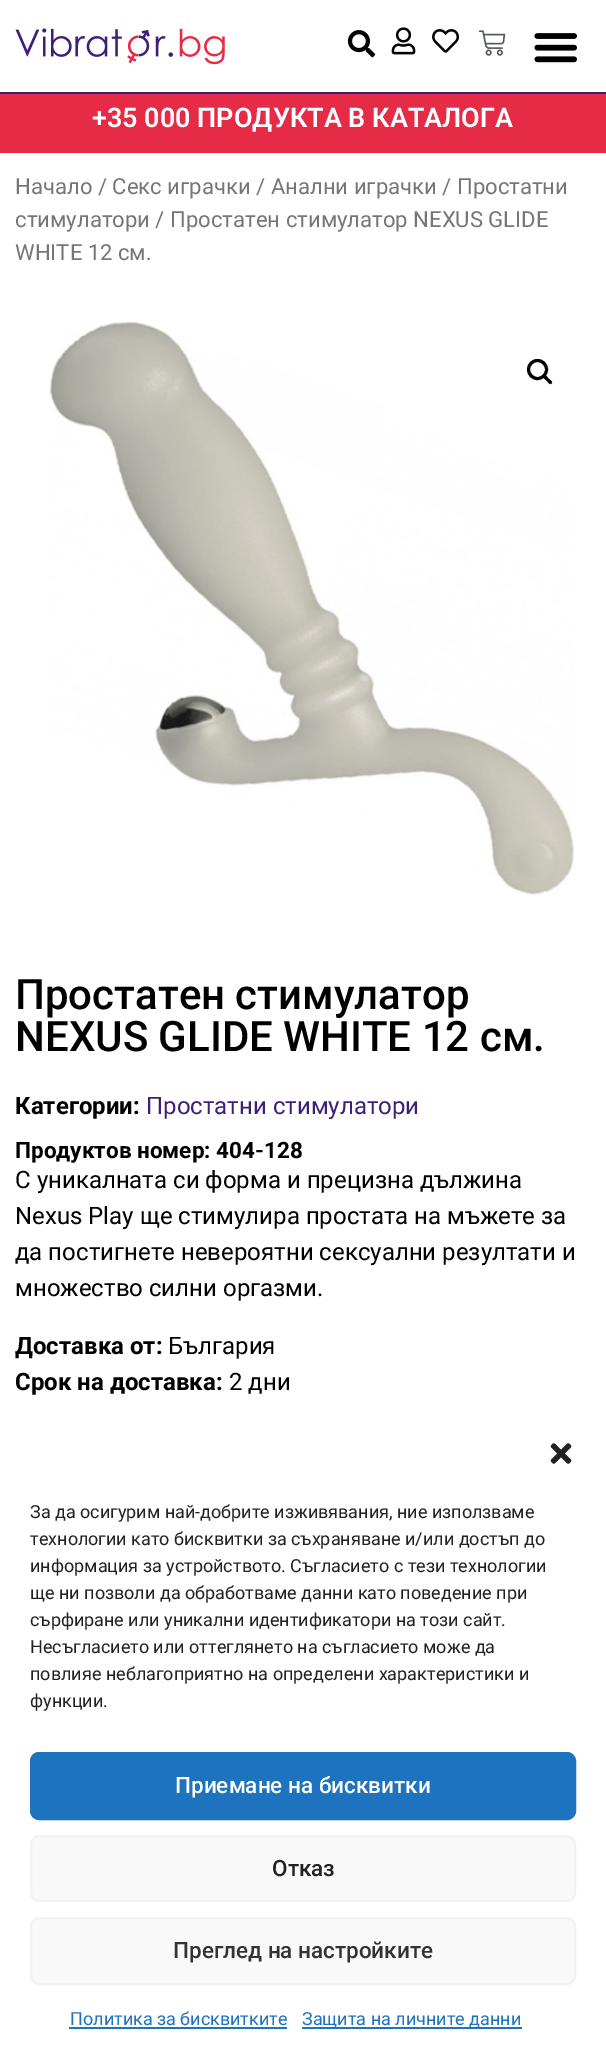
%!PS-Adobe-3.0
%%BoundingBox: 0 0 606 2057
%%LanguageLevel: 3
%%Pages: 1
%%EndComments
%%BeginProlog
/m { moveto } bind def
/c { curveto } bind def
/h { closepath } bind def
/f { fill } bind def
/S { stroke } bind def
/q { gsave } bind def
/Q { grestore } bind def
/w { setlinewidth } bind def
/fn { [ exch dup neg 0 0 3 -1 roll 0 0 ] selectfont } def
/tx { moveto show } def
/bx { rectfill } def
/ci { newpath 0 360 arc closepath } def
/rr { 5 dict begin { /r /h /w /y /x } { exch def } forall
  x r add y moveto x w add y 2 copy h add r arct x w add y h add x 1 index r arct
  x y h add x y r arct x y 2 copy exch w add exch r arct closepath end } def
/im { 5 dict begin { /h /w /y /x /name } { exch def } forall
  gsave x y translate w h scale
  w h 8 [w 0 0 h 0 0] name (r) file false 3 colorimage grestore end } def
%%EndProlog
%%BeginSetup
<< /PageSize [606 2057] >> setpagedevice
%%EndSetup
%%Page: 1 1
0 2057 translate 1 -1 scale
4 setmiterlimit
1 setgray
0 0 606 2057 bx
0.243 0.118 0.475 setrgbcolor
0 92 606 2 bx
(image0.raw) 15 28 210 37 im
(image1.raw) 347 30 29 28 im
(image2.raw) 391 27 25 28 im
(image3.raw) 432 29 28 24 im
(image4.raw) 478 30 28 26 im
(image5.raw) 534 33 43 30 im
0.898 0.169 0.271 setrgbcolor
0 94 606 59 bx
/Roboto-SemiBold 27 fn
1 setgray
(+35 000 ПРОДУКТА В КАТАЛОГА) 92 127 tx
/Roboto-Regular 22.1 fn
0.463 setgray
(Начало / Секс играчки / Анални играчки / Простатни) 15 194 tx
(стимулатори / Простатен стимулатор NEXUS GLIDE) 15 227 tx
(WHITE 12 см.) 15 260 tx
(image6.raw) 49 321 526 575 im
0 setgray
3 w
537.5 369.5 9 ci S
543.5 375 m 545 373.5 547.5 377.5 548.5 378.5 c 549.5 379.5 553.5 382 551.5 383.5 c 550 385.5 547.5 381.5 546.5 380.5 c 545.5 379.5 541.5 377 543.5 375 c h f
/Roboto-Medium 42 fn
(Простатен стимулатор) 15 1009 tx
(NEXUS GLIDE WHITE 12 см.) 15 1051 tx
/Roboto-Bold 24 fn
(Категории:) 15 1114 tx
/Roboto-Regular 24 fn
0.243 0.118 0.475 setrgbcolor
(Простатни стимулатори) 146 1114 tx
/Roboto-Bold 22.5 fn
0 setgray
(Продуктов номер: 404-128) 15 1158 tx
/Roboto-Regular 24 fn
(С уникалната си форма и прецизна дължина) 15 1188 tx
(Nexus Play ще стимулира простата на мъжете за) 15 1224 tx
(да постигнете невероятни сексуални резултати и) 15 1260 tx
(множество силни оргазми.) 15 1296 tx
/Roboto-Bold 24 fn
(Доставка от:) 15 1354 tx
/Roboto-Regular 24 fn
(България) 168 1354 tx
/Roboto-Bold 24 fn
(Срок на доставка:) 15 1390 tx
/Roboto-Regular 24 fn
(2 дни) 229 1390 tx
(image7.raw) 550 1443 22 21 im
/Roboto-Regular 18 fn
0.133 setgray
(За да осигурим най-добрите изживявания, ние използваме) 30 1518 tx
(технологии като бисквитки за съхраняване и/или достъп до) 30 1545 tx
(информация за устройството. Съгласието с тези технологии) 30 1572 tx
(ще ни позволи да обработваме данни като поведение при) 30 1599 tx
(сърфиране или уникални идентификатори на този сайт.) 30 1626 tx
(Несъгласието или оттеглянето на съгласието може да) 30 1653 tx
(повлияе неблагоприятно на определени характеристики и) 30 1680 tx
(функции.) 30 1707 tx
0.118 0.451 0.745 setrgbcolor
31 1753 544 66 8 rr q f Q
2 w
S
/Roboto-Medium 22.5 fn
1 setgray
(Приемане на бисквитки) 175 1793 tx
0.976 setgray
31 1836 544 65 8 rr q f Q
0.949 setgray
S
0.133 setgray
(Отказ) 272 1876 tx
0.976 setgray
31 1918 544 66 8 rr q f Q
0.949 setgray
S
0.2 setgray
(Преглед на настройките) 173 1958 tx
/Roboto-Regular 18 fn
0.118 0.451 0.745 setrgbcolor
(Политика за бисквитките) 70 2025 tx
69 2027 218 2 bx
302 2027 220 2 bx
(Защита на личните данни) 302 2025 tx
showpage
%%EOF
